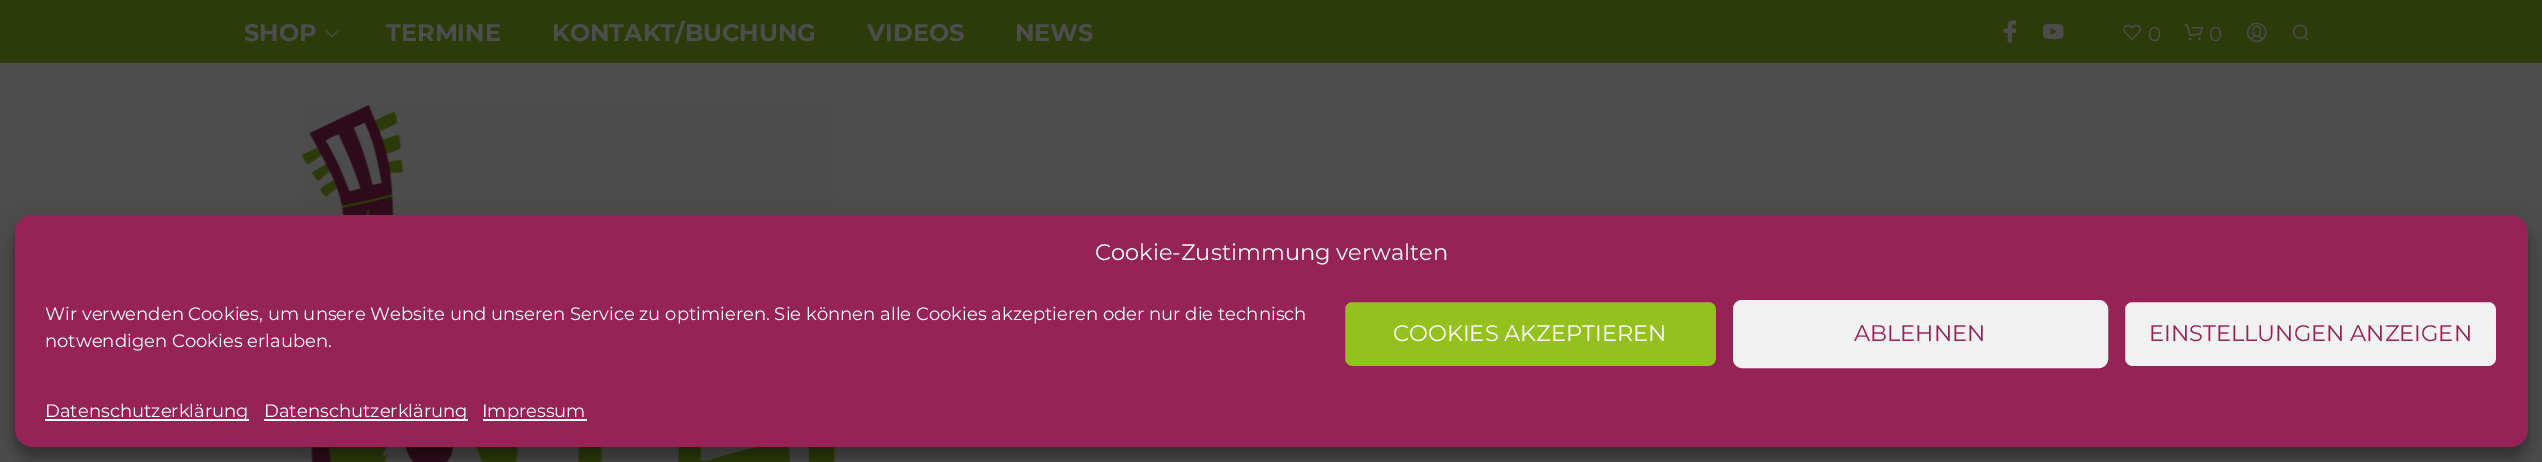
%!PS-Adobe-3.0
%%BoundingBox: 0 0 2542 462
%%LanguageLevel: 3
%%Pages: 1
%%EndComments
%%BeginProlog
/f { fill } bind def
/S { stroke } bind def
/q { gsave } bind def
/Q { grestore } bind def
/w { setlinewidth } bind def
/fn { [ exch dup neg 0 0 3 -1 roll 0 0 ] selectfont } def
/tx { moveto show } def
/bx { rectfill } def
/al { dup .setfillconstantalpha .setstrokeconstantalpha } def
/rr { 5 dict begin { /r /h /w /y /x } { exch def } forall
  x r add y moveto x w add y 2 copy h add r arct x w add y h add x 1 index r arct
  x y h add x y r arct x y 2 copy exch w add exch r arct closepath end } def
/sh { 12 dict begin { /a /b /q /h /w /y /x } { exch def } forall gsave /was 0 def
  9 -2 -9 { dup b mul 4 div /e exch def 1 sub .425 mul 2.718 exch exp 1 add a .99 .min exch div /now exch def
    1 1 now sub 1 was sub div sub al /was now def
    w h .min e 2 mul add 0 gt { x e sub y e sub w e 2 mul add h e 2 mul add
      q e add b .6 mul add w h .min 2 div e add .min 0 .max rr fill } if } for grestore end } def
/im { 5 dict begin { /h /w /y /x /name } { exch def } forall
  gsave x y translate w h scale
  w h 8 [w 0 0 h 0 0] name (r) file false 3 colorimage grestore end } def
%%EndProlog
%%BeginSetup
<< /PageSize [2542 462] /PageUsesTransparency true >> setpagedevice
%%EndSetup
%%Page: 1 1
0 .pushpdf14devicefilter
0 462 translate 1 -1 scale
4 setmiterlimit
0.302 setgray
0 0 2542 462 bx
0.176 0.227 0.035 setrgbcolor
0 0 2542 63 bx
/Montserrat-Bold 24 fn
0.302 setgray
(SHOP) 244 41 tx
(image0.raw) 325 29 15 9 im
(TERMINE) 386 41 tx
(KONTAKT/BUCHUNG) 552 41 tx
(VIDEOS) 867 41 tx
(NEWS) 1015 41 tx
(image1.raw) 2003 20 14 23 im
(image2.raw) 2042 23 22 17 im
(image3.raw) 2123 24 18 17 im
/Montserrat-Regular 20 fn
(0) 2148 41 tx
(image4.raw) 2184 24 20 17 im
(0) 2209 41 tx
(image5.raw) 2247 22 20 21 im
(image6.raw) 2292 24 17 17 im
(image7.raw) 301 105 534 357 im
0 setgray
15 224 2513 232 18 4.5 0.23 sh
15 230 2513 232 18 15 0.19 sh
0.584 0.137 0.337 setrgbcolor
15 215 2513 232 18 rr f
/Montserrat-Regular 22.5 fn
1 setgray
(Cookie-Zustimmung verwalten) 1095 260 tx
/Montserrat-Regular 18 fn
(Wir verwenden Cookies, um unsere Website und unseren Service zu optimieren. Sie können alle Cookies akzeptieren oder nur die technisch) 45 320 tx
(notwendigen Cookies erlauben.) 45 347 tx
0.58 0.757 0.118 setrgbcolor
1344 301 373 66 8 rr q f Q
0.584 0.137 0.337 setrgbcolor
2 w
S
/Montserrat-Regular 22.5 fn
1 setgray
(COOKIES AKZEPTIEREN) 1393 341 tx
0.945 setgray
1734 301 373 66 8 rr q f Q
S
0.584 0.137 0.337 setrgbcolor
(ABLEHNEN) 1854 341 tx
0.945 setgray
2124 301 373 66 8 rr q f Q
0.584 0.137 0.337 setrgbcolor
S
(EINSTELLUNGEN ANZEIGEN) 2149 341 tx
1 setgray
45 419 204 2 bx
/Montserrat-Regular 18 fn
(Datenschutzerklärung) 45 417 tx
264 419 204 2 bx
(Datenschutzerklärung) 264 417 tx
483 419 104 2 bx
(Impressum) 482 417 tx
.poppdf14devicefilter showpage
%%EOF
